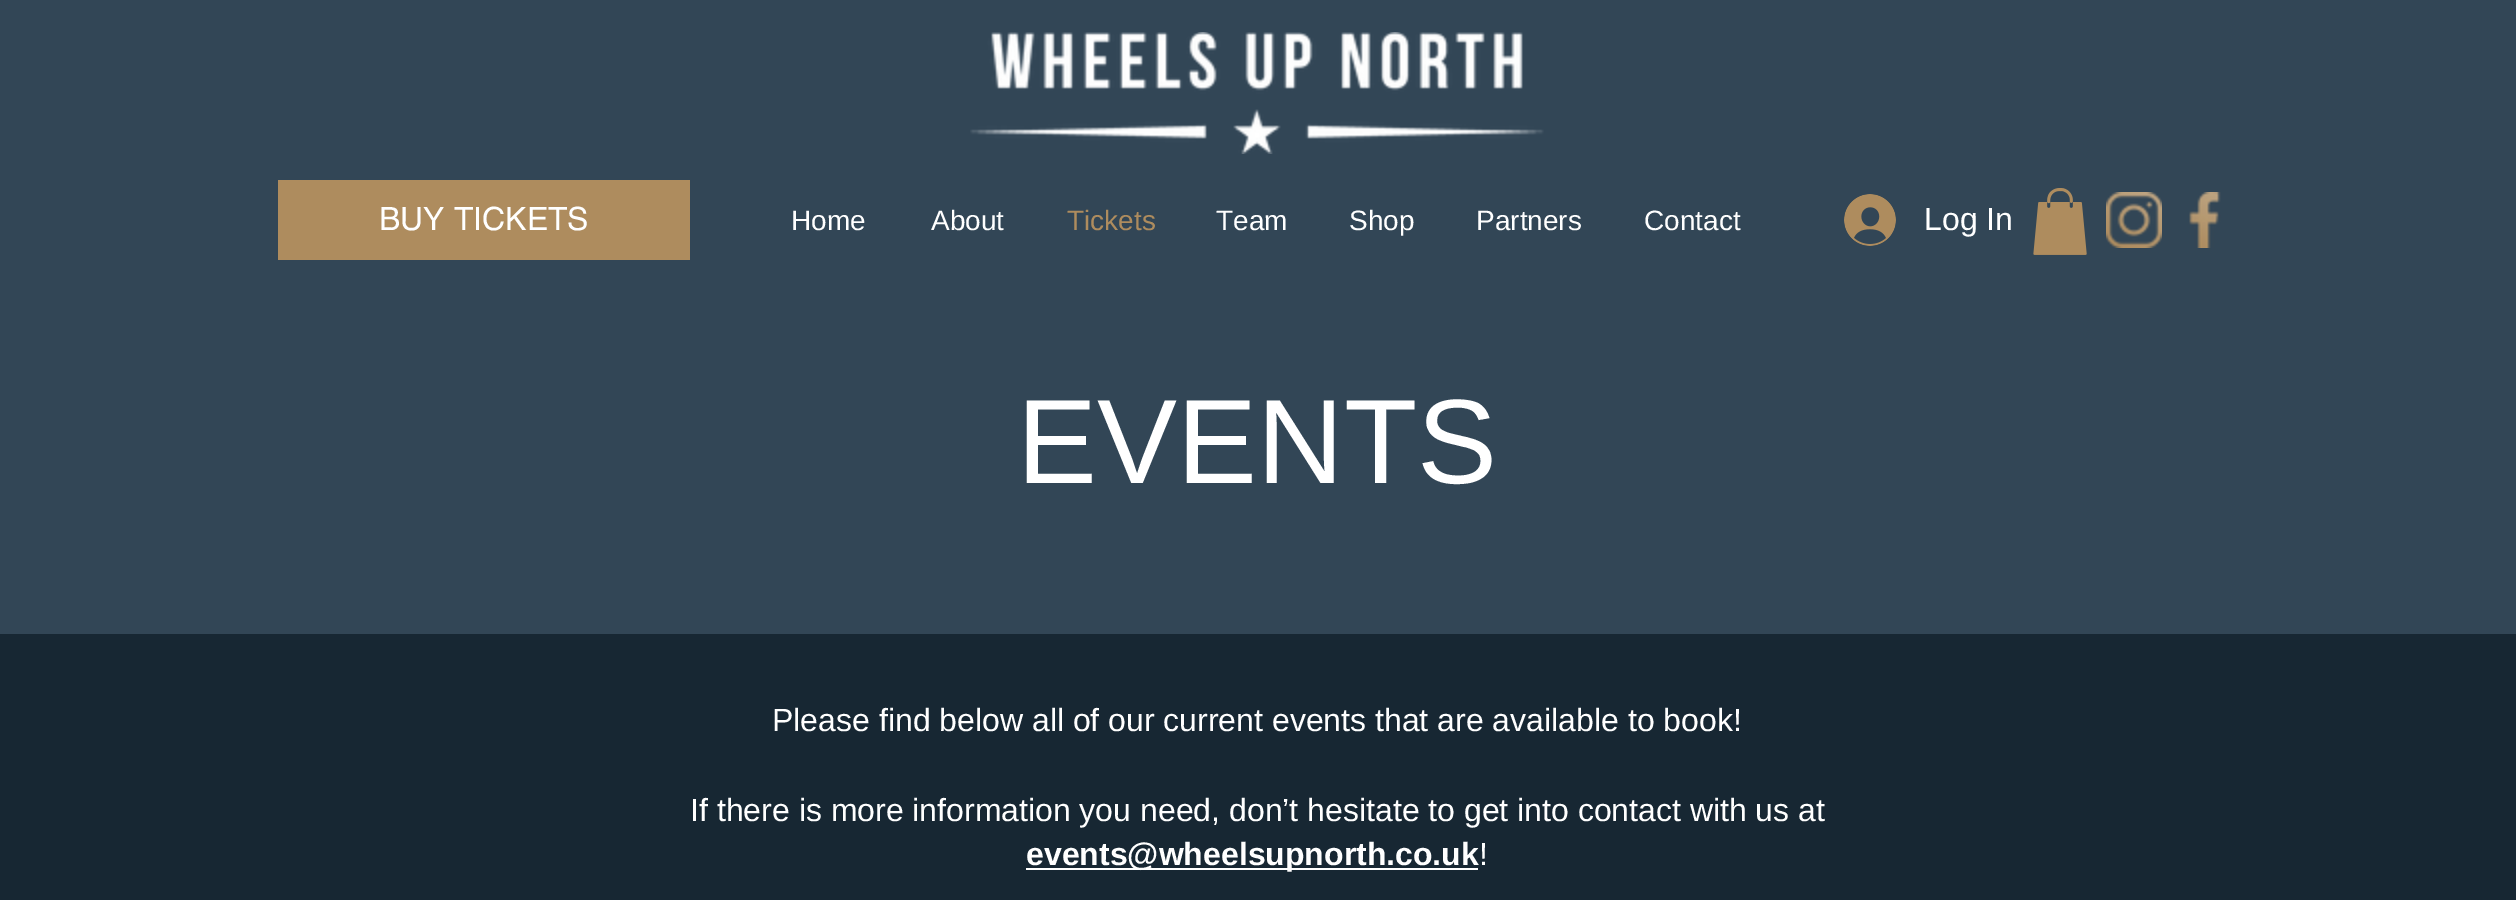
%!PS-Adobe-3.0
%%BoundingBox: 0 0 2516 900
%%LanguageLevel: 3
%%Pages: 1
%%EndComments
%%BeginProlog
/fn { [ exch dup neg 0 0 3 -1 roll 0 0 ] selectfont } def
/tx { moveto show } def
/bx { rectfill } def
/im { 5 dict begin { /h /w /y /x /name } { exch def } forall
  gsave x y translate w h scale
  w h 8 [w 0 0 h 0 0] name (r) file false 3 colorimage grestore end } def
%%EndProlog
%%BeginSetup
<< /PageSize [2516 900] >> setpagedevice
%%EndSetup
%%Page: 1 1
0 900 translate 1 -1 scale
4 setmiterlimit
0.09 0.153 0.2 setrgbcolor
0 0 2516 900 bx
0.196 0.275 0.337 setrgbcolor
0 0 2516 634 bx
(image0.raw) 970 32 574 122 im
0.682 0.549 0.369 setrgbcolor
278 180 412 80 bx
/helvetica-Regular 32 fn
1 setgray
(BUY TICKETS) 379 230 tx
/LiberationSans-Regular 28 fn
(Home) 791 230 tx
(About) 931 230 tx
0.682 0.549 0.369 setrgbcolor
(Tickets) 1067 230 tx
1 setgray
(Team) 1216 230 tx
(Shop) 1349 230 tx
(Partners) 1476 230 tx
(Contact) 1644 230 tx
(image1.raw) 1844 194 52 52 im
/LiberationSans-Regular 32 fn
(Log In) 1924 230 tx
(image2.raw) 2033 188 54 67 im
(image3.raw) 2106 192 56 56 im
(image4.raw) 2189 192 32 56 im
/LiberationSans-Regular 120 fn
(EVENTS) 1017 483 tx
/LiberationSans-Regular 32 fn
(Please find below all of our current events that are available to book!) 772 731 tx
(If there is more information you need, don’t hesitate to get into contact with us at) 690 821 tx
1026 868 452 2 bx
/LiberationSans-Bold 32 fn
(events@wheelsupnorth.co.uk) 1026 865 tx
/LiberationSans-Regular 32 fn
(!) 1479 865 tx
showpage
%%EOF
